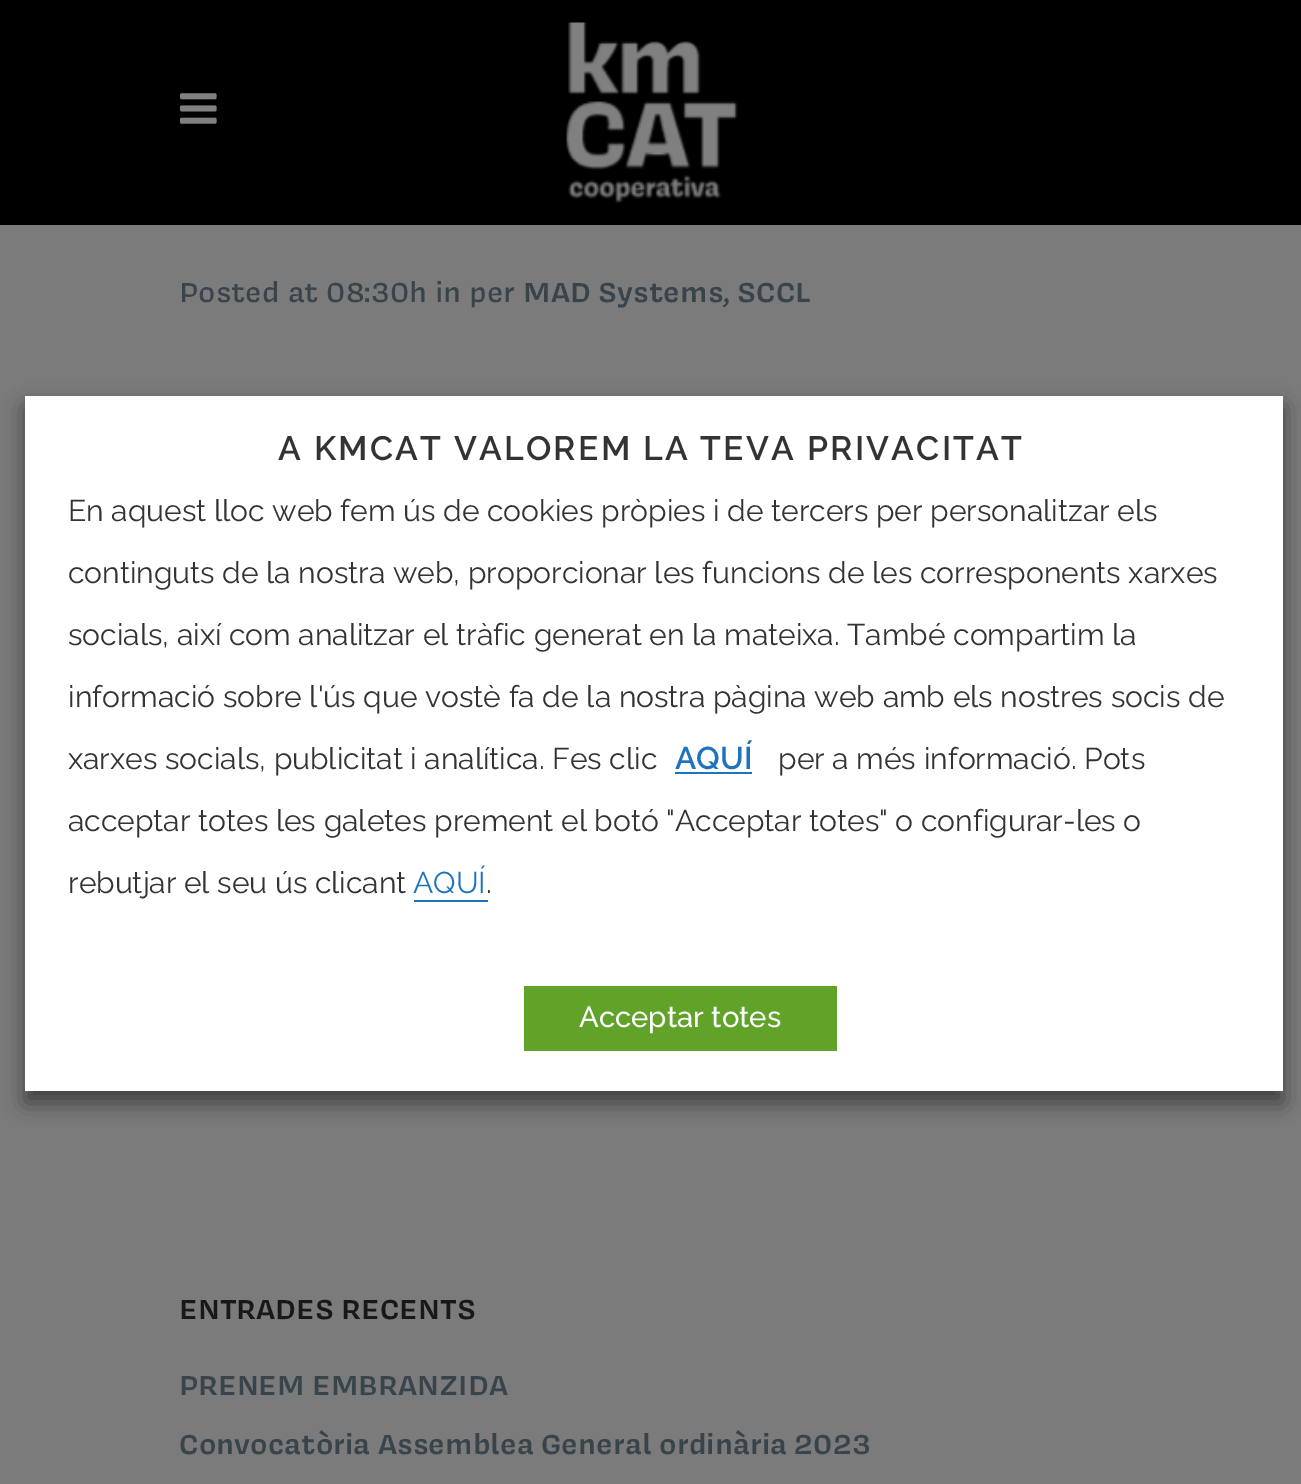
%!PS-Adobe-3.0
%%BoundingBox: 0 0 1301 1484
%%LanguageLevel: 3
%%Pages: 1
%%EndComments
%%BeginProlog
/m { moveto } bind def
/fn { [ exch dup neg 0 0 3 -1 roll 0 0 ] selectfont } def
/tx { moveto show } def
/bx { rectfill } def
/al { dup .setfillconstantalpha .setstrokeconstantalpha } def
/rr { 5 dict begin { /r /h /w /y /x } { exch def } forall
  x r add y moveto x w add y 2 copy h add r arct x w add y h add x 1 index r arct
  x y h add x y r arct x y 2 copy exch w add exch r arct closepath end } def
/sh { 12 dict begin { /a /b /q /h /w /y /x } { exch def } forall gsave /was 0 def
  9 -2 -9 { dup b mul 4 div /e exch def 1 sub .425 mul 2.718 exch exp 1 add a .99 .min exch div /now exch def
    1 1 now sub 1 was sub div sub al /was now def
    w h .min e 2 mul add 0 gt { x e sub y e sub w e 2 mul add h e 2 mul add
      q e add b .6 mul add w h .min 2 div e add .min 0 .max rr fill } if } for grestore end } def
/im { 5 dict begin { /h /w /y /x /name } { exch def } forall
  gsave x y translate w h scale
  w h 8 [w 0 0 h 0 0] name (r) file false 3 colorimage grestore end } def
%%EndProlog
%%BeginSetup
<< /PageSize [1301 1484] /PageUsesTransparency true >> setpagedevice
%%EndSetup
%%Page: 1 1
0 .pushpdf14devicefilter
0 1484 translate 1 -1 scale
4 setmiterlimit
0.482 setgray
0 0 1301 1484 bx
0 setgray
0 0 1301 225 bx
(image0.raw) 180 93 37 31 im
(image1.raw) 566 22 172 181 im
/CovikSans-Medium 31.5 fn
0.22 0.263 0.29 setrgbcolor
(Posted at 08:30h in per) 179 302 tx
/CovikSans-SemiBold 31.5 fn
(MAD Systems, SCCL) 523 302 tx
0.094 setgray
(ENTRADES RECENTS) 179 1319 tx
0.22 0.263 0.29 setrgbcolor
(PRENEM EMBRANZIDA) 179 1395 tx
(Convocatòria Assemblea General ordinària 2023) 179 1454 tx
0 setgray
25 407 1258 696 0 11 0.5 sh
1 setgray
25 396 1258 695 bx
/Raleway-SemiBold 33.75 fn
0.2 setgray
278 460 m 2.25 0 (A KMCAT VALOREM LA TEVA PRIVACITAT) ashow
/Raleway-Regular 30 fn
(En aquest lloc web fem ús de cookies pròpies i de tercers per personalitzar els) 68 521 tx
(continguts de la nostra web, proporcionar les funcions de les corresponents xarxes) 68 583 tx
(socials, així com analitzar el tràfic generat en la mateixa. També compartim la) 68 645 tx
(informació sobre l'ús que vostè fa de la nostra pàgina web amb els nostres socis de) 68 707 tx
(xarxes socials, publicitat i analítica. Fes clic) 68 769 tx
/Raleway-SemiBold 31.5 fn
0.118 0.451 0.745 setrgbcolor
(AQUÍ) 675 769 tx
675 772 77 2 bx
/Raleway-Regular 30 fn
0.2 setgray
(per a més informació. Pots) 778 769 tx
(acceptar totes les galetes prement el botó "Acceptar totes" o configurar-les o) 68 831 tx
(rebutjar el seu ús clicant) 68 893 tx
0.118 0.451 0.745 setrgbcolor
(AQUÍ) 413 893 tx
414 900 74 2 bx
0.2 setgray
(.) 486 893 tx
0.38 0.635 0.161 setrgbcolor
524 986 313 65 bx
/Raleway-Medium 29.25 fn
1 setgray
(Acceptar totes) 579 1027 tx
.poppdf14devicefilter showpage
%%EOF
